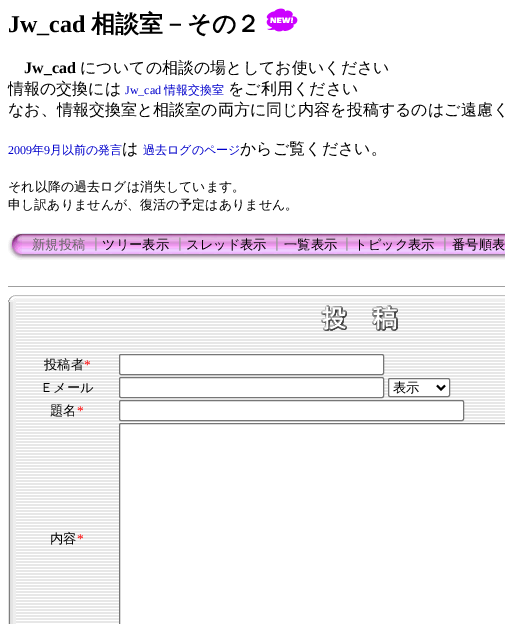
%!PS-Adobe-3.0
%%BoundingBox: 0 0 505 624
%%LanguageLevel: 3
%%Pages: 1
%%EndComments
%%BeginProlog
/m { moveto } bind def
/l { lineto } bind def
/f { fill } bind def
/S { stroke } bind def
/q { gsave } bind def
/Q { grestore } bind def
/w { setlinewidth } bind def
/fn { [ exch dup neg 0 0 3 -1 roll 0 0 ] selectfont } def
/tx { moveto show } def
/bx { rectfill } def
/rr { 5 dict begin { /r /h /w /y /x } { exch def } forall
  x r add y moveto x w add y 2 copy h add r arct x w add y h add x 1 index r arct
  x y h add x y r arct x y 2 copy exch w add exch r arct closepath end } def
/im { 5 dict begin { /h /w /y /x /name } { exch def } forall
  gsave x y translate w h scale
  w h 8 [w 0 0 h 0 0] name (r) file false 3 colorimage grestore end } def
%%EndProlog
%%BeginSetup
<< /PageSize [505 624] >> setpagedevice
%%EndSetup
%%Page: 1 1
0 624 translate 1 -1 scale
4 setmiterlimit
1 setgray
0 0 505 624 bx
/LiberationSerif-Bold 24 fn
0 setgray
(Jw_cad) 8 32 tx
/WenQuanYiZenHei-Bold 24 fn
(相談室－その２) 91 32 tx
(image0.raw) 266 8 32 24 im
/LiberationSerif-Bold 16 fn
(Jw_cad) 24 73 tx
/WenQuanYiZenHei-Medium 16 fn
(についての相談の場としてお使いください) 80 73 tx
(情報の交換には) 8 94 tx
/LiberationSerif-Regular 12 fn
0 0 0.8 setrgbcolor
(Jw_cad) 125 94 tx
/WenQuanYiZenHei-Medium 12 fn
(情報交換室) 164 94 tx
/WenQuanYiZenHei-Medium 16 fn
0 setgray
(をご利用ください) 228 94 tx
(なお、情報交換室と相談室の両方に同じ内容を投稿するのはご遠慮く) 8 115 tx
/LiberationSerif-Regular 12 fn
0 0 0.8 setrgbcolor
(2009) 8 154 tx
/WenQuanYiZenHei-Medium 12 fn
(年) 32 154 tx
/LiberationSerif-Regular 12 fn
(9) 44 154 tx
/WenQuanYiZenHei-Medium 12 fn
(月以前の発言) 50 154 tx
/WenQuanYiZenHei-Medium 16 fn
0 setgray
(は) 122 154 tx
/WenQuanYiZenHei-Medium 12 fn
0 0 0.8 setrgbcolor
(過去ログのページ) 143 154 tx
/WenQuanYiZenHei-Medium 16 fn
0 setgray
(からご覧ください。) 240 154 tx
/WenQuanYiZenHei-Medium 13 fn
(それ以降の過去ログは消失しています。) 8 191 tx
(申し訳ありませんが、復活の予定はありません。) 8 209 tx
(image1.raw) 8 233 14 27 im
(image2.raw) 22 233 483 27 im
/WenQuanYiZenHei-Medium 13.25 fn
0.4 setgray
(新規投稿) 32 249 tx
0.6 setgray
(┃) 89 249 tx
0 setgray
(ツリー表示) 102 249 tx
0.6 setgray
(┃) 173 249 tx
0 setgray
(スレッド表示) 186 249 tx
0.6 setgray
(┃) 270 249 tx
0 setgray
(一覧表示) 284 249 tx
0.6 setgray
(┃) 340 249 tx
0 setgray
(トピック表示) 354 249 tx
0.6 setgray
(┃) 438 249 tx
0 setgray
(番号順表) 452 249 tx
0.624 setgray
8 286 497 1 bx
(image3.raw) 8 295 8 7 im
(image4.raw) 16 295 489 7 im
(image5.raw) 8 302 8 322 im
(image6.raw) 16 302 489 322 im
(image7.raw) 321 305 77 26 im
0 setgray
(投稿者) 44 369 tx
/LiberationSerif-Regular 13.25 fn
1 0 0 setrgbcolor
(*) 84 369 tx
1 setgray
119.5 354.5 264 20 1.5 rr q f Q
0.463 setgray
S
/WenQuanYiZenHei-Medium 13.25 fn
0 setgray
(Ｅメール) 40 392 tx
1 setgray
119.5 377.5 264 20 1.5 rr q f Q
0.463 setgray
S
1 setgray
388.5 378.5 61 18 1.5 rr q f Q
0.463 setgray
S
0 setgray
2 w
437 385.5 m 441 389.5 l 445 385.5 l S
(表示) 393 392 tx
(題名) 50 415 tx
/LiberationSerif-Regular 13.25 fn
1 0 0 setrgbcolor
(*) 77 415 tx
1 setgray
119.5 400.5 344 20 1.5 rr q f Q
0.463 setgray
1 w
S
/WenQuanYiZenHei-Medium 13.25 fn
0 setgray
(内容) 50 543 tx
/LiberationSerif-Regular 13.25 fn
1 0 0 setrgbcolor
(*) 77 543 tx
1 setgray
119.5 423.5 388 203 1.5 rr q f Q
0.463 setgray
S
showpage
%%EOF
